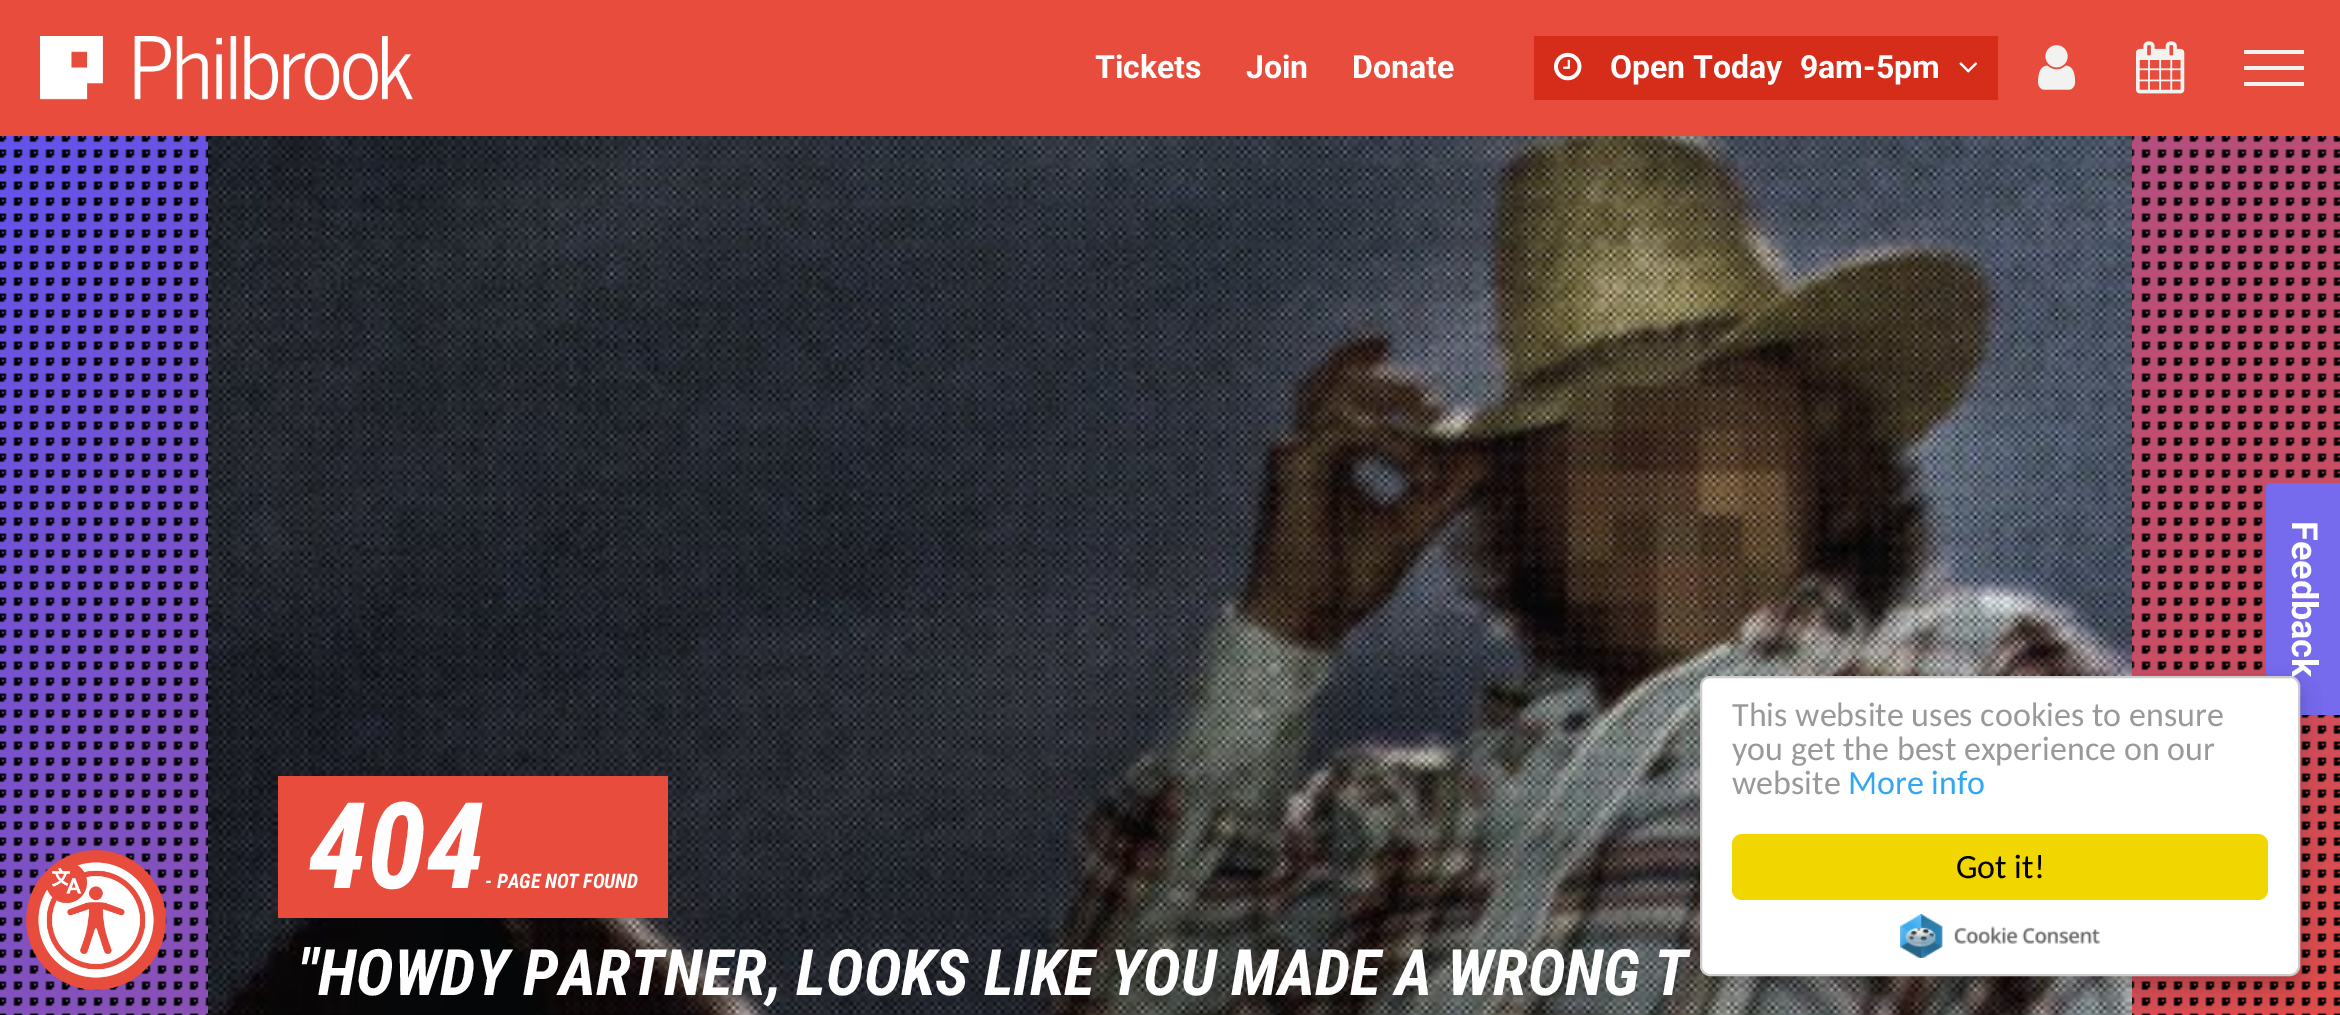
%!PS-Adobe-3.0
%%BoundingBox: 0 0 2340 1015
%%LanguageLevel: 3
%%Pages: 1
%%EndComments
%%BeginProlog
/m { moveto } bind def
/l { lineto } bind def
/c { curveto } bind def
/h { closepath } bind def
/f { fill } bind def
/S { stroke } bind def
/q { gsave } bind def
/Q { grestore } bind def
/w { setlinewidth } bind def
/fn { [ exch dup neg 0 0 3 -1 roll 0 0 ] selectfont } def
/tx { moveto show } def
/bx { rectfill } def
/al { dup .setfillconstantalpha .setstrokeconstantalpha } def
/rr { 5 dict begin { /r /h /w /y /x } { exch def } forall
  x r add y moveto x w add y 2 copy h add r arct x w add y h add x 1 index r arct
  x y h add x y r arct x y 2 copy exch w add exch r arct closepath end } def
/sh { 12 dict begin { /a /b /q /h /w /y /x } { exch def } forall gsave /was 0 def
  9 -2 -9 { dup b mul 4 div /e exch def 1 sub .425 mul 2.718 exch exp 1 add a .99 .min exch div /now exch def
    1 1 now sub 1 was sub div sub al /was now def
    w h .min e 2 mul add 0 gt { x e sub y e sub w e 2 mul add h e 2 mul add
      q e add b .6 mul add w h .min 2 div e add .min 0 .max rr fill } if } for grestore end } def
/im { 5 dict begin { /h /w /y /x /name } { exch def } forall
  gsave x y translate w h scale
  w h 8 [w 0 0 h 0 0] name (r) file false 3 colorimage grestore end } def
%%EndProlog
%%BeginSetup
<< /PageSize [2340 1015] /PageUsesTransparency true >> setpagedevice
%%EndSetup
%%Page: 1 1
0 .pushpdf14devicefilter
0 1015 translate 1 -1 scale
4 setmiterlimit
1 setgray
0 0 2340 1015 bx
0.906 0.298 0.235 setrgbcolor
0 0 2340 136 bx
(image0.raw) 40 36 373 64 im
/Roboto-Bold 32 fn
0.996 setgray
(Tickets) 1095 78 tx
(Join) 1246 78 tx
(Donate) 1352 78 tx
0.839 0.173 0.102 setrgbcolor
1534 36 464 64 bx
(image1.raw) 1554 52 28 29 im
0.996 setgray
(Open Today) 1610 78 tx
(9am-5pm) 1800 78 tx
(image2.raw) 1959 62 19 11 im
(image3.raw) 2038 45 38 45 im
(image4.raw) 2136 41 49 53 im
0.949 0.949 0.941 setrgbcolor
2244 50 60 4 bx
2244 66 60 4 bx
2244 82 60 4 bx
(image6.raw) 0 136 2340 879 im
0.463 0.416 0.929 setrgbcolor
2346 488 m 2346 710 l 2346 713 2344 715 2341 715 c 2271 715 l 2268 715 2266 713 2266 710 c 2266 488 l 2266 485 2268 483 2271 483 c 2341 483 l 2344 483 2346 485 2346 488 c h f
/Roboto-Bold 36 fn
0.996 setgray
q 2292 521 translate 90 rotate 0 0 m (Feedback) show Q
(image5.raw) 26 850 140 140 im
(image7.raw) 208 136 1924 879 im
0.906 0.298 0.235 setrgbcolor
278 776 390 142 bx
/RobotoCondensed-BoldItalic 120 fn
0.996 setgray
(404) 308 888 tx
/RobotoCondensed-BoldItalic 20 fn
(- PAGE NOT FOUND) 485 888 tx
/RobotoCondensed-BoldItalic 64 fn
("HOWDY PARTNER, LOOKS LIKE YOU MADE A WRONG T) 298 995 tx
0 setgray
1700 686 600 300 10 10 0.2 sh
1 setgray
1701 677 598 298 9 rr q f Q
0.8 setgray
2 w
S
/Carlito-Regular 34 fn
0.6 setgray
(This website uses cookies to ensure) 1732 726 tx
(you get the best experience on our) 1732 760 tx
(website) 1732 794 tx
0.192 0.659 0.941 setrgbcolor
(More info) 1848 794 tx
0.945 0.839 0 setrgbcolor
1732 834 536 66 10 rr f
0 setgray
(Got it!) 1956 878 tx
(image8.raw) 1900 914 200 44 im
.poppdf14devicefilter showpage
%%EOF
